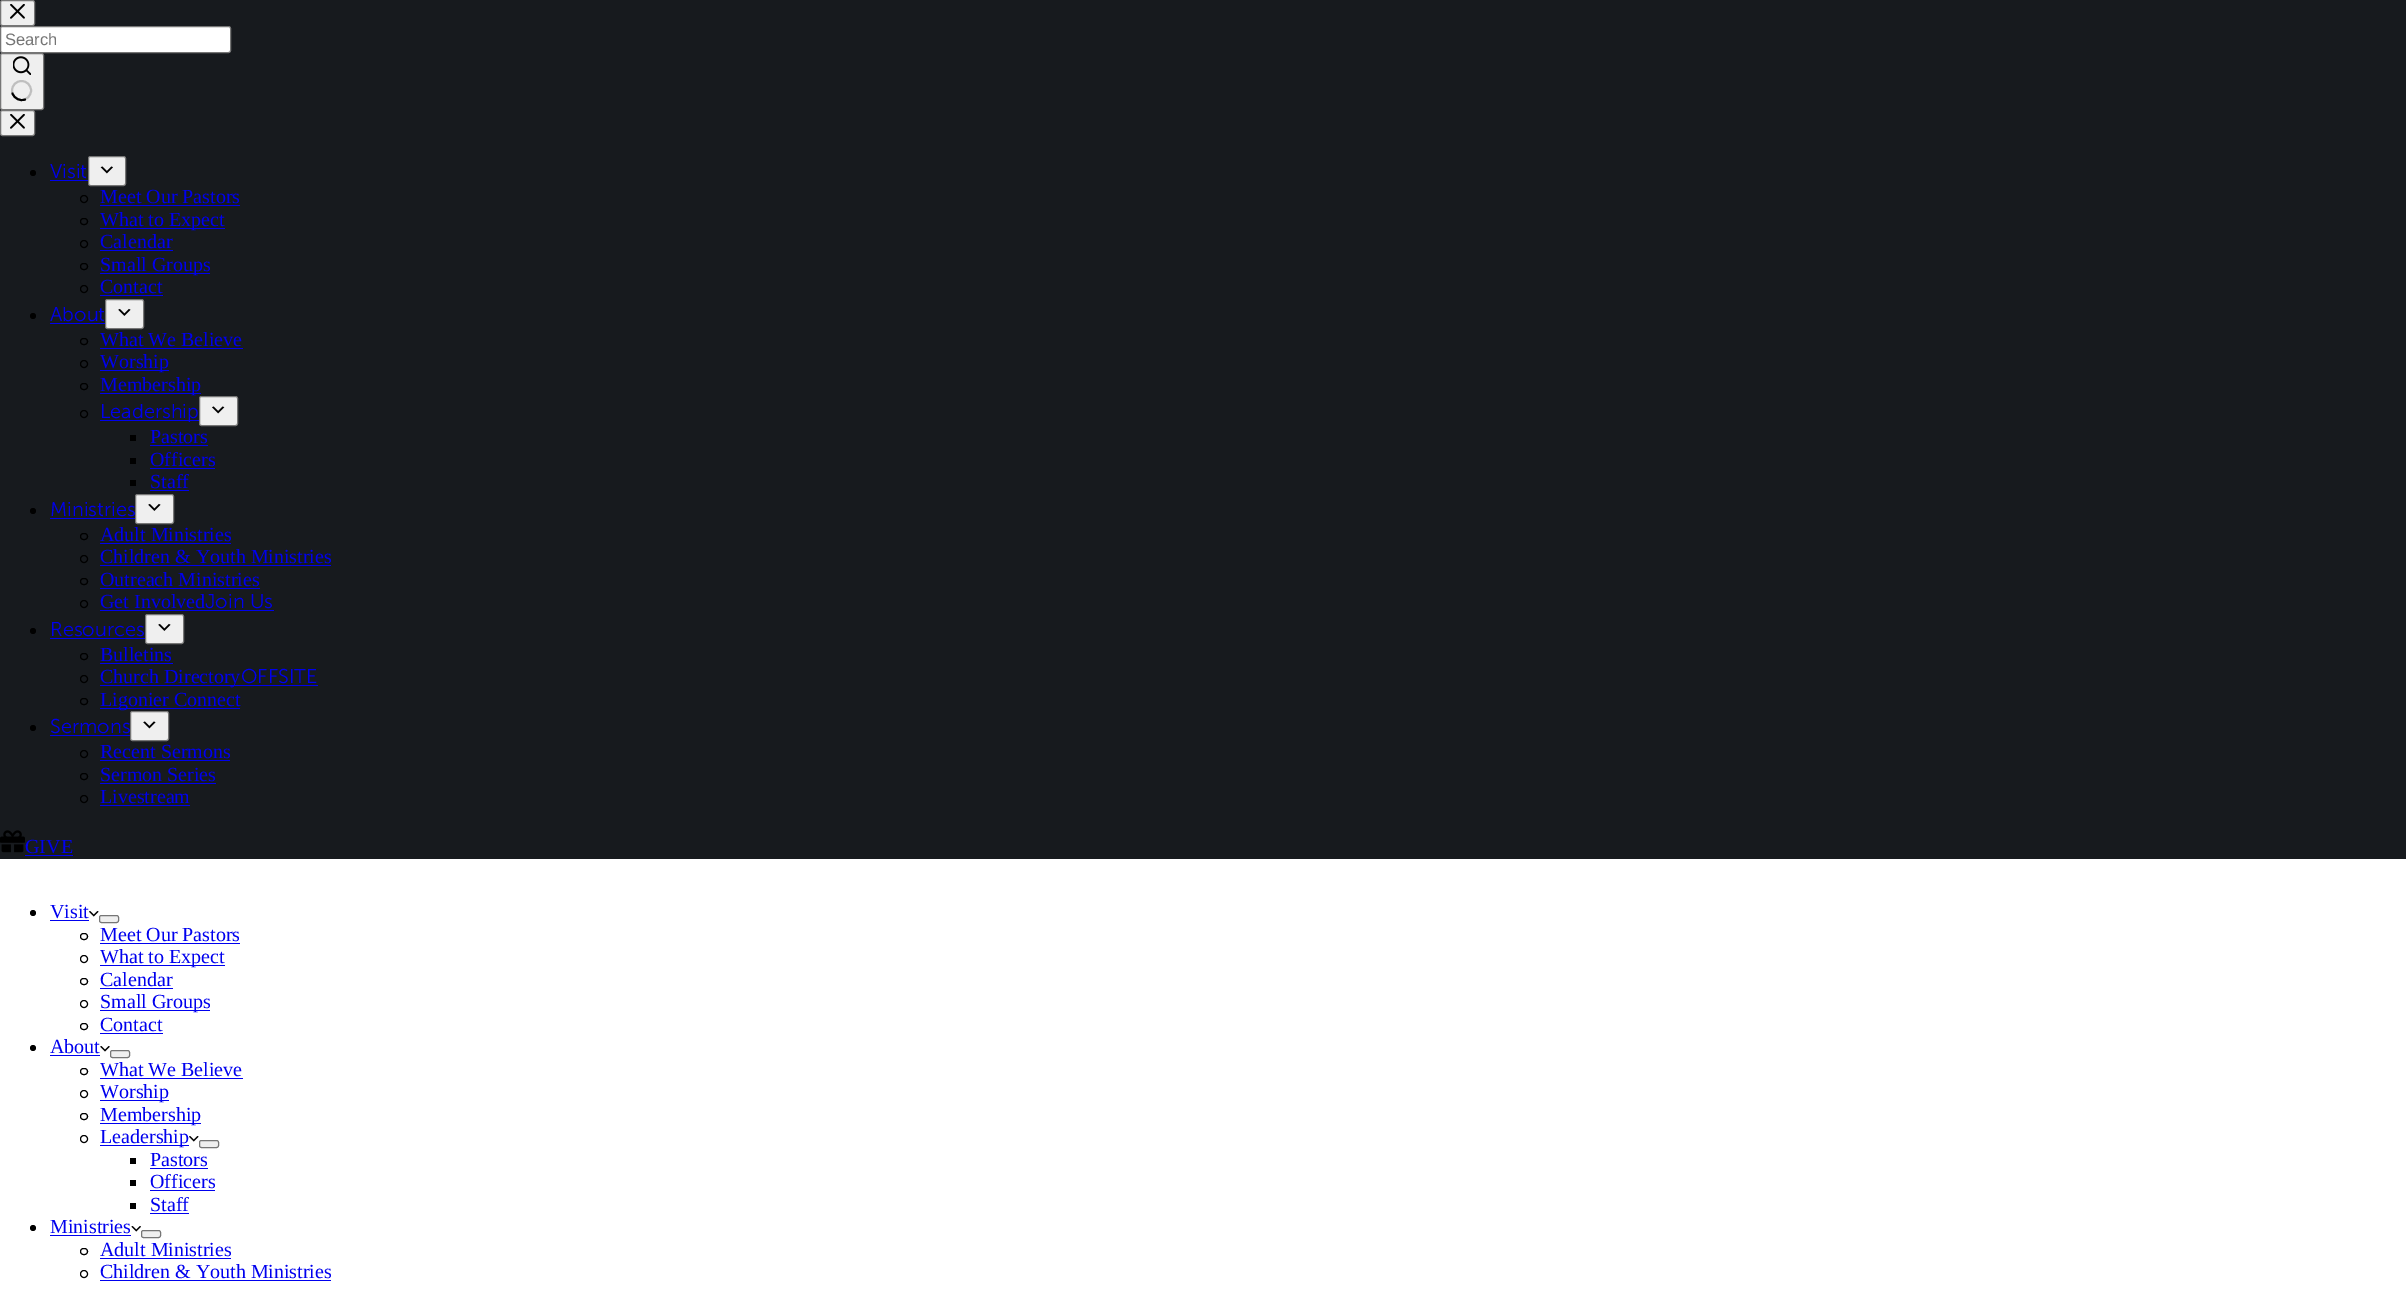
%!PS-Adobe-3.0
%%BoundingBox: 0 0 2406 1292
%%LanguageLevel: 3
%%Pages: 1
%%EndComments
%%BeginProlog
/m { moveto } bind def
/c { curveto } bind def
/f { fill } bind def
/S { stroke } bind def
/q { gsave } bind def
/Q { grestore } bind def
/w { setlinewidth } bind def
/fn { [ exch dup neg 0 0 3 -1 roll 0 0 ] selectfont } def
/tx { moveto show } def
/bx { rectfill } def
/ci { newpath 0 360 arc closepath } def
/rr { 5 dict begin { /r /h /w /y /x } { exch def } forall
  x r add y moveto x w add y 2 copy h add r arct x w add y h add x 1 index r arct
  x y h add x y r arct x y 2 copy exch w add exch r arct closepath end } def
/im { 5 dict begin { /h /w /y /x /name } { exch def } forall
  gsave x y translate w h scale
  w h 8 [w 0 0 h 0 0] name (r) file false 3 colorimage grestore end } def
%%EndProlog
%%BeginSetup
<< /PageSize [2406 1292] >> setpagedevice
%%EndSetup
%%Page: 1 1
0 1292 translate 1 -1 scale
4 setmiterlimit
1 setgray
0 0 2406 1292 bx
0.09 0.102 0.118 setrgbcolor
0 0 2406 859 bx
0.937 setgray
0.5 0.5 34 25 2 rr q f Q
0.463 setgray
S
(image0.raw) 10 4 15 15 im
1 setgray
0.5 26.5 230 26 2 rr q f Q
0.463 setgray
S
/LiberationSans-Regular 16.5 fn
0.459 setgray
(Search) 5 45 tx
0.937 setgray
0.5 53.5 43 56 2 rr q f Q
0.463 setgray
S
(image1.raw) 13 56 18 19 im
0.749 setgray
1.9 w
21.5 90.5 9.5 ci S
0 setgray
1 setlinecap
25 99.5 m 20 101.5 14.5 98.5 12.5 93.5 c S
0.937 setgray
0.5 110.5 34 25 2 rr q f Q
0.463 setgray
1 w
0 setlinecap
S
(image0.raw) 10 114 15 15 im
0 setgray
33 173 3 ci f
/MuseoSans-Light 20 fn
0 0 0.933 setrgbcolor
(Visit) 50 178 tx
50 180 38 1 bx
0.937 setgray
88.5 156.5 37 29 2 rr q f Q
0.463 setgray
S
(image2.raw) 100 166 13 8 im
0 setgray
84 199 3.5 ci S
/LiberationSerif-Regular 20 fn
0 0 0.933 setrgbcolor
(Meet Our Pastors) 100 203 tx
100 205 140 1 bx
0 setgray
80.5 218.5 7 6 3 rr S
0 0 0.933 setrgbcolor
100 228 125 1 bx
(What to Expect) 100 226 tx
0 setgray
84 244 3.5 ci S
0 0 0.933 setrgbcolor
(Calendar) 100 248 tx
100 250 73 1 bx
0 setgray
80.5 263.5 7 6 3 rr S
0 0 0.933 setrgbcolor
100 273 110 1 bx
(Small Groups) 100 271 tx
0 setgray
84 289 3.5 ci S
0 0 0.933 setrgbcolor
(Contact) 100 293 tx
100 295 63 1 bx
0 setgray
33 316 3 ci f
/MuseoSans-Light 20 fn
0 0 0.933 setrgbcolor
(About) 50 321 tx
50 323 55 1 bx
0.937 setgray
105.5 299.5 38 29 2 rr q f Q
0.463 setgray
S
(image3.raw) 118 308 13 8 im
0 setgray
80.5 338.5 7 6 3 rr S
/LiberationSerif-Regular 20 fn
0 0 0.933 setrgbcolor
(What We Believe) 100 346 tx
100 348 143 1 bx
0 setgray
84 364 3.5 ci S
0 0 0.933 setrgbcolor
100 370 69 1 bx
(Worship) 100 368 tx
0 setgray
80.5 383.5 7 6 3 rr S
0 0 0.933 setrgbcolor
100 393 101 1 bx
(Membership) 100 391 tx
0 setgray
84 414 3.5 ci S
0 0 0.933 setrgbcolor
100 420 99 1 bx
/MuseoSans-Light 20 fn
(Leadership) 100 418 tx
0.937 setgray
199.5 396.5 38 29 2 rr q f Q
0.463 setgray
S
(image4.raw) 212 406 13 8 im
0 setgray
130 435 6 6 bx
/LiberationSerif-Regular 20 fn
0 0 0.933 setrgbcolor
(Pastors) 150 443 tx
150 445 58 1 bx
0 setgray
130 458 6 6 bx
0 0 0.933 setrgbcolor
(Officers) 150 466 tx
150 468 65 1 bx
0 setgray
130 480 6 6 bx
0 0 0.933 setrgbcolor
(Staff) 150 488 tx
150 490 39 1 bx
0 setgray
33 511 3 ci f
/MuseoSans-Light 20 fn
0 0 0.933 setrgbcolor
(Ministries) 50 516 tx
50 518 85 1 bx
0.937 setgray
135.5 494.5 38 29 2 rr q f Q
0.463 setgray
S
(image3.raw) 148 503 13 8 im
0 setgray
80.5 533.5 7 6 3 rr S
/LiberationSerif-Regular 20 fn
0 0 0.933 setrgbcolor
(Adult Ministries) 100 541 tx
100 543 131 1 bx
0 setgray
84 559 3.5 ci S
0 0 0.933 setrgbcolor
(Children & Youth Ministries) 100 563 tx
100 565 231 1 bx
0 setgray
80.5 578.5 7 6 3 rr S
0 0 0.933 setrgbcolor
(Outreach Ministries) 100 586 tx
100 588 160 1 bx
0 setgray
84 604 3.5 ci S
0 0 0.933 setrgbcolor
(Get Involved) 100 608 tx
100 610 174 1 bx
/MuseoSans-Light 20 fn
(Join Us) 205 608 tx
0 setgray
33 631 3 ci f
0 0 0.933 setrgbcolor
(Resources) 50 636 tx
50 638 95 1 bx
0.937 setgray
145.5 614.5 38 29 2 rr q f Q
0.463 setgray
S
(image3.raw) 158 623 13 8 im
0 setgray
80.5 653.5 7 6 3 rr S
/LiberationSerif-Regular 20 fn
0 0 0.933 setrgbcolor
(Bulletins) 100 661 tx
100 663 73 1 bx
0 setgray
84 679 3.5 ci S
0 0 0.933 setrgbcolor
100 685 140 1 bx
(Church Directory) 100 683 tx
240 685 78 1 bx
/MuseoSans-Light 20 fn
(OFFSITE) 241 683 tx
0 setgray
80.5 698.5 7 6 3 rr S
0 0 0.933 setrgbcolor
100 708 140 1 bx
/LiberationSerif-Regular 20 fn
(Ligonier Connect) 100 706 tx
0 setgray
33 728 3 ci f
/MuseoSans-Light 20 fn
0 0 0.933 setrgbcolor
(Sermons) 50 733 tx
50 735 80 1 bx
0.937 setgray
130.5 711.5 38 29 2 rr q f Q
0.463 setgray
S
(image5.raw) 143 721 13 8 im
0 setgray
84 754 3.5 ci S
/LiberationSerif-Regular 20 fn
0 0 0.933 setrgbcolor
(Recent Sermons) 100 758 tx
100 760 130 1 bx
0 setgray
80.5 773.5 7 6 3 rr S
0 0 0.933 setrgbcolor
(Sermon Series) 100 781 tx
100 783 116 1 bx
0 setgray
84 799 3.5 ci S
0 0 0.933 setrgbcolor
(Livestream) 100 803 tx
100 805 90 1 bx
(image6.raw) 0 830 25 23 im
(GIVE) 25 853 tx
25 855 48 1 bx
0 setgray
33 913 3 ci f
0 0 0.933 setrgbcolor
(Visit) 50 918 tx
50 920 39 1 bx
(image7.raw) 89 911 10 6 im
0.937 setgray
99.5 915.5 19 7 2 rr q f Q
0.463 setgray
S
0 setgray
80.5 933.5 7 6 3 rr S
0 0 0.933 setrgbcolor
(Meet Our Pastors) 100 941 tx
100 943 140 1 bx
0 setgray
84 959 3.5 ci S
0 0 0.933 setrgbcolor
100 965 125 1 bx
(What to Expect) 100 963 tx
0 setgray
80.5 978.5 7 6 3 rr S
0 0 0.933 setrgbcolor
(Calendar) 100 986 tx
100 988 73 1 bx
0 setgray
84 1004 3.5 ci S
0 0 0.933 setrgbcolor
100 1010 110 1 bx
(Small Groups) 100 1008 tx
0 setgray
80.5 1023.5 7 6 3 rr S
0 0 0.933 setrgbcolor
(Contact) 100 1031 tx
100 1033 63 1 bx
0 setgray
33 1048 3 ci f
0 0 0.933 setrgbcolor
(About) 50 1053 tx
50 1055 50 1 bx
(image8.raw) 100 1046 10 6 im
0.937 setgray
110.5 1050.5 19 7 2 rr q f Q
0.463 setgray
S
0 setgray
80.5 1068.5 7 6 3 rr S
0 0 0.933 setrgbcolor
(What We Believe) 100 1076 tx
100 1078 143 1 bx
0 setgray
84 1094 3.5 ci S
0 0 0.933 setrgbcolor
100 1100 69 1 bx
(Worship) 100 1098 tx
0 setgray
80.5 1113.5 7 6 3 rr S
0 0 0.933 setrgbcolor
100 1123 101 1 bx
(Membership) 100 1121 tx
0 setgray
84 1139 3.5 ci S
0 0 0.933 setrgbcolor
100 1145 89 1 bx
(Leadership) 100 1143 tx
(image7.raw) 189 1136 10 6 im
0.937 setgray
199.5 1140.5 19 7 2 rr q f Q
0.463 setgray
S
0 setgray
130 1158 6 6 bx
0 0 0.933 setrgbcolor
(Pastors) 150 1166 tx
150 1168 58 1 bx
0 setgray
130 1180 6 6 bx
0 0 0.933 setrgbcolor
(Officers) 150 1188 tx
150 1190 65 1 bx
0 setgray
130 1203 6 6 bx
0 0 0.933 setrgbcolor
(Staff) 150 1211 tx
150 1213 39 1 bx
0 setgray
33 1228 3 ci f
0 0 0.933 setrgbcolor
(Ministries) 50 1233 tx
50 1235 81 1 bx
(image9.raw) 131 1226 10 6 im
0.937 setgray
141.5 1230.5 19 7 2 rr q f Q
0.463 setgray
S
0 setgray
80.5 1248.5 7 6 3 rr S
0 0 0.933 setrgbcolor
(Adult Ministries) 100 1256 tx
100 1258 131 1 bx
0 setgray
84 1274 3.5 ci S
0 0 0.933 setrgbcolor
(Children & Youth Ministries) 100 1278 tx
100 1280 231 1 bx
showpage
%%EOF
